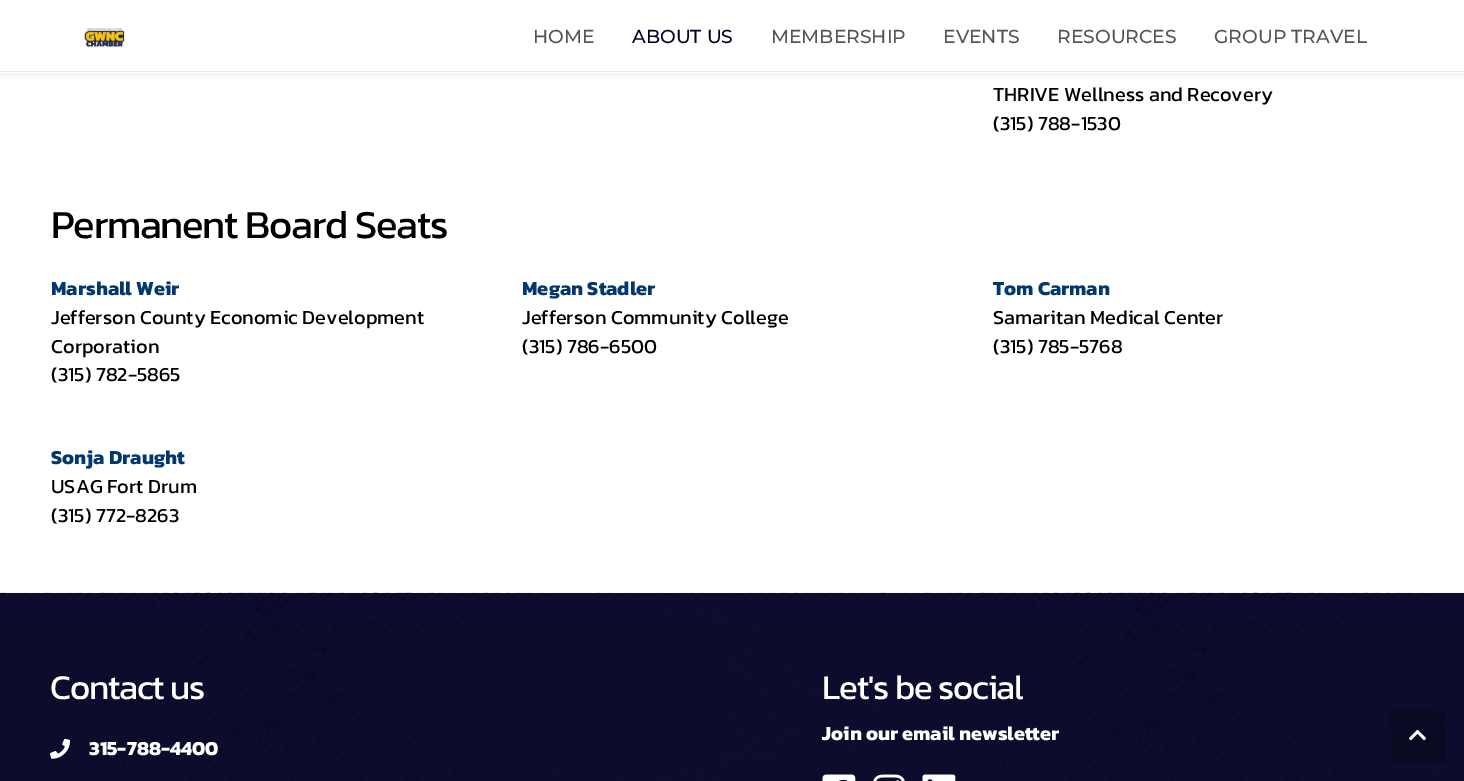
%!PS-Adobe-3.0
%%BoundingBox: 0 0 1464 781
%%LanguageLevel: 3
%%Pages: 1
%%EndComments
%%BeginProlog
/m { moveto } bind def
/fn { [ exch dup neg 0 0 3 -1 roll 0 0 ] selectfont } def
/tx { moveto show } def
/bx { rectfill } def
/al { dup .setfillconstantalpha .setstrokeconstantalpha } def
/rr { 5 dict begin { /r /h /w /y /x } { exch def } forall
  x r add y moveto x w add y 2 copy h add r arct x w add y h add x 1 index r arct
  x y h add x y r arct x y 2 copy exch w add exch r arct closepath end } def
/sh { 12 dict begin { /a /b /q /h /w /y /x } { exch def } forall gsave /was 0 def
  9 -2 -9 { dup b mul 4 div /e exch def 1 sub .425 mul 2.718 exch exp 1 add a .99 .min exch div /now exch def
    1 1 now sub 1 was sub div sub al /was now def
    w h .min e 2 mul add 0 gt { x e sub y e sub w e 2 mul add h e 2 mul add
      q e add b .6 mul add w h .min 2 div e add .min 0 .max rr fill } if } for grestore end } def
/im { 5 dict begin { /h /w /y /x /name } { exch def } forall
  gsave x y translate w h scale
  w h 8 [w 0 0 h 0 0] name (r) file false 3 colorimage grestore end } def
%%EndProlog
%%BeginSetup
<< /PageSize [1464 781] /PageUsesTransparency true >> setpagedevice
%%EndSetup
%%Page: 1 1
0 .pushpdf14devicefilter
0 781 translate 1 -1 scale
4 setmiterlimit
1 setgray
0 0 1464 781 bx
0 setgray
0 0 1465 73 0 4.5 0.1 sh
1 setgray
0 0 1464 73 bx
0.914 setgray
0 71 1464 1 bx
(image0.raw) 84 28 41 20 im
/Montserrat-Medium 18.75 fn
0.333 setgray
(HOME) 533 43 tx
0 0 0.133 setrgbcolor
(ABOUT US) 632 43 tx
0.333 setgray
(MEMBERSHIP) 771 43 tx
(EVENTS) 943 43 tx
(RESOURCES) 1057 43 tx
(GROUP TRAVEL) 1214 43 tx
/Kanit-Regular 20 fn
0 setgray
(THRIVE Wellness and Recovery) 993 101 tx
(\(315\) 788-1530) 993 130 tx
/Kanit-Regular 40 fn
51 238 m -1.25 0 (Permanent Board Seats) ashow
/Kanit-Bold 20 fn
0.008 0.22 0.431 setrgbcolor
(Marshall Weir) 51 295 tx
/Kanit-Regular 20 fn
0 setgray
(Jefferson County Economic Development) 51 324 tx
(Corporation) 51 353 tx
(\(315\) 782-5865) 51 381 tx
/Kanit-Bold 20 fn
0.008 0.22 0.431 setrgbcolor
(Sonja Draught) 51 464 tx
/Kanit-Regular 20 fn
0 setgray
(USAG Fort Drum) 51 493 tx
(\(315\) 772-8263) 51 522 tx
/Kanit-Bold 20 fn
0.008 0.22 0.431 setrgbcolor
(Megan Stadler) 522 295 tx
/Kanit-Regular 20 fn
0 setgray
(Jefferson Community College) 522 324 tx
(\(315\) 786-6500) 522 353 tx
/Kanit-Bold 20 fn
0.008 0.22 0.431 setrgbcolor
(Tom Carman) 993 295 tx
/Kanit-Regular 20 fn
0 setgray
(Samaritan Medical Center) 993 324 tx
(\(315\) 785-5768) 993 353 tx
(image1.raw) 0 592 1464 189 im
/Kanit-Regular 35 fn
1 setgray
50 699 m -1.25 0 (Contact us) ashow
(image2.raw) 50 738 20 21 im
/Kanit-Bold 20 fn
(315-788-4400) 89 755 tx
/Kanit-Regular 35 fn
822 699 m -1.25 0 (Let's be social) ashow
/Kanit-Bold 20 fn
(Join our email newsletter) 822 740 tx
(image3.raw) 822 774 34 7 im
(image4.raw) 873 774 32 7 im
(image5.raw) 922 774 34 7 im
0.2 al
0 setgray
1391 710 55 53 bx
1 al
(image6.raw) 1409 729 17 12 im
.poppdf14devicefilter showpage
%%EOF
